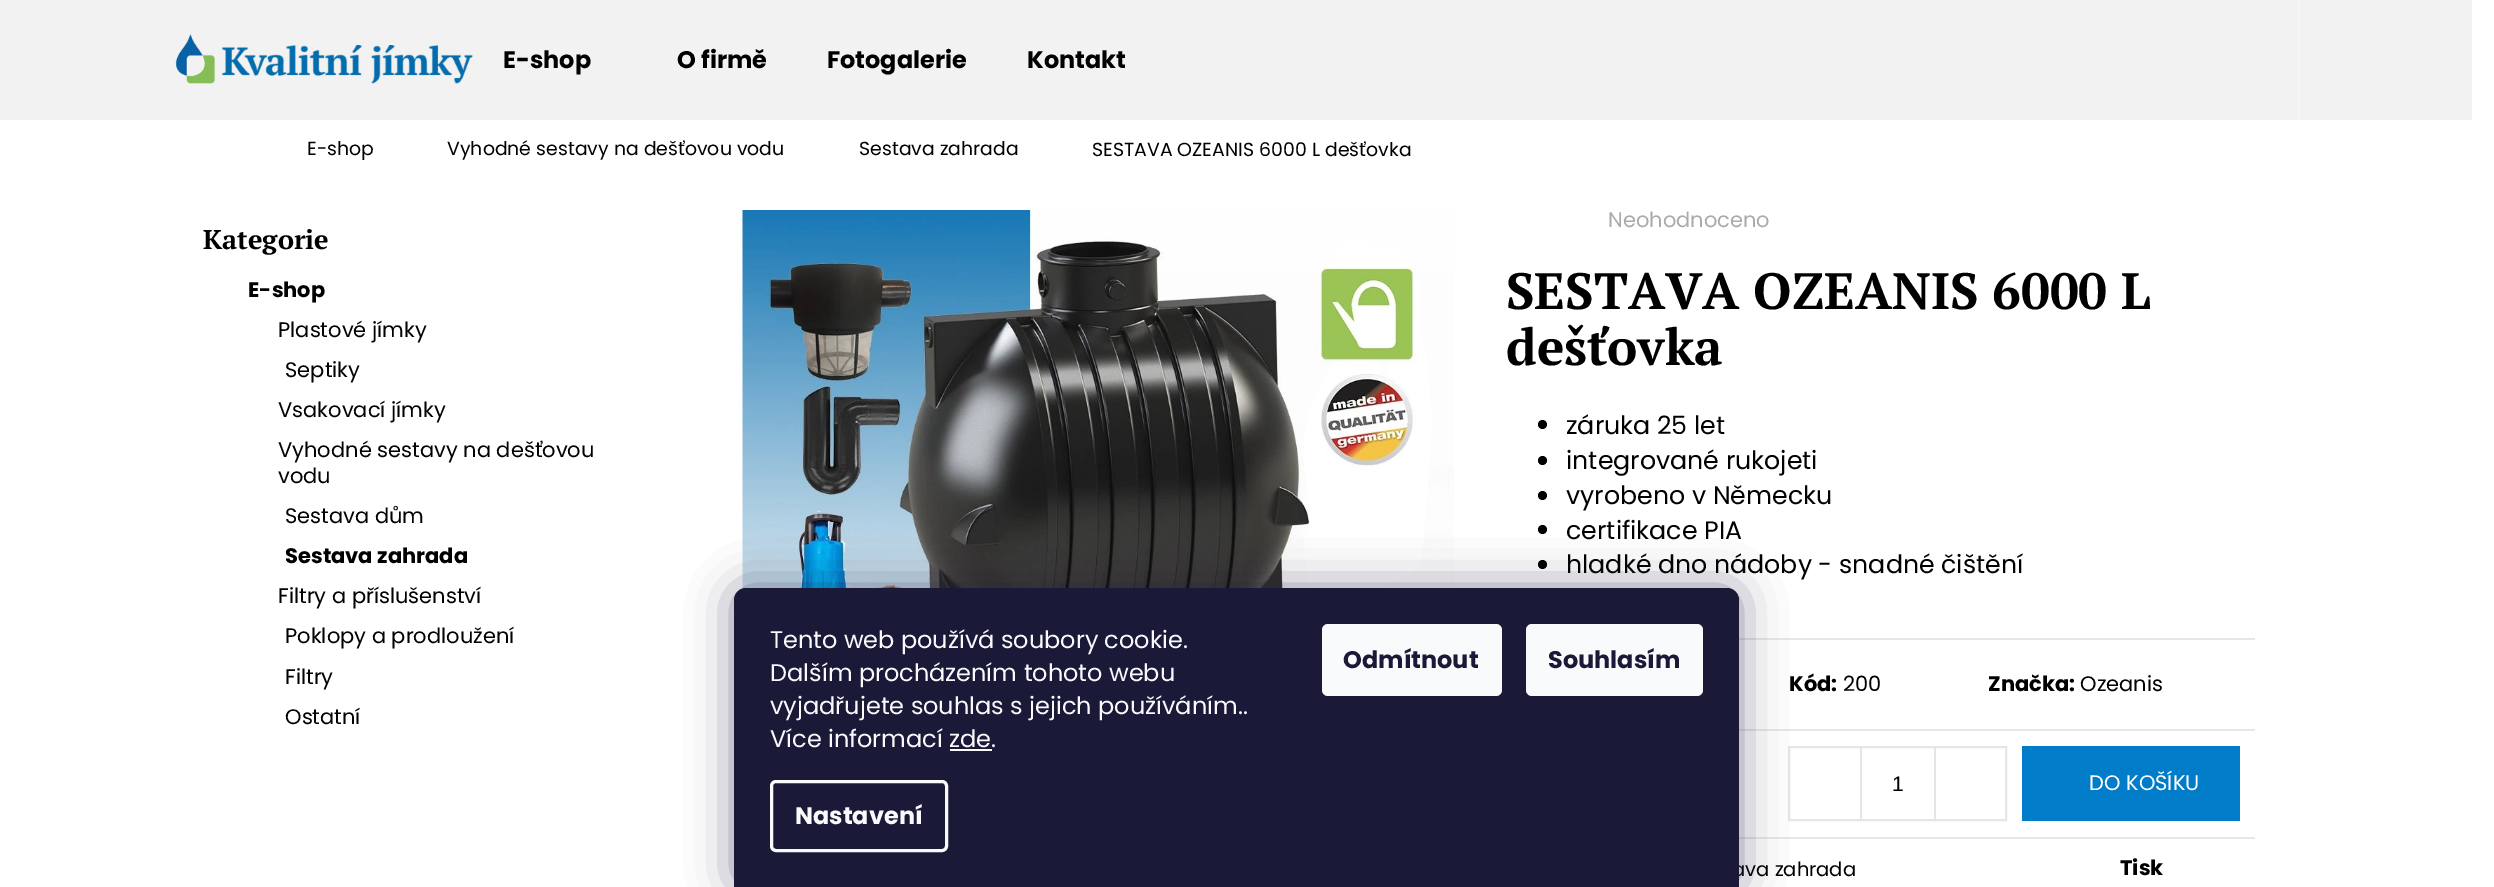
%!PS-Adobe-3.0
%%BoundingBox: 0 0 2494 887
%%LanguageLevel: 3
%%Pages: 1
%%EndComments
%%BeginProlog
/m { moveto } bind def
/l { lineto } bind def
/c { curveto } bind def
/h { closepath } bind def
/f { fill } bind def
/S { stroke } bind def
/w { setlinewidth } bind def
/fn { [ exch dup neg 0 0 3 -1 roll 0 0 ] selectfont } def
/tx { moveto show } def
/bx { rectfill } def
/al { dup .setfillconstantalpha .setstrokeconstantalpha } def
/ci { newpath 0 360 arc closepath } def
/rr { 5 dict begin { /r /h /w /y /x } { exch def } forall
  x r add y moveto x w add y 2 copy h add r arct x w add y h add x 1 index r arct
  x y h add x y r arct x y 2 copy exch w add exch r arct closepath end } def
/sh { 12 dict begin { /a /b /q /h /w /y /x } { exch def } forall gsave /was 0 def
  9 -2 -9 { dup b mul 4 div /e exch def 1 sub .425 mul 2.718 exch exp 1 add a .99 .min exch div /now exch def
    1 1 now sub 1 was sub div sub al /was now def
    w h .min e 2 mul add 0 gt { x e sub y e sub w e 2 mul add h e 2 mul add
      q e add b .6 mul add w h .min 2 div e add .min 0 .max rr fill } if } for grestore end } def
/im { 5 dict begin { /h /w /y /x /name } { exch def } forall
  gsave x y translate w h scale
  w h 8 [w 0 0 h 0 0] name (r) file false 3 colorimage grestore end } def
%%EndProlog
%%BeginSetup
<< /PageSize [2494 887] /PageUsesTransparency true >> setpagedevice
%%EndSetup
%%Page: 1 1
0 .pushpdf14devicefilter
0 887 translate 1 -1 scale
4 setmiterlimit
1 setgray
0 0 2494 887 bx
0.949 setgray
0 0 2472 120 bx
(image0.raw) 175 34 298 50 im
/Poppins-Bold 24 fn
0 setgray
(E-shop) 503 68 tx
(O firmě) 677 68 tx
(Fotogalerie) 827 68 tx
(Kontakt) 1027 68 tx
0.965 setgray
2298 0 2 120 bx
/Poppins-Regular 18.9 fn
0 setgray
(E-shop) 307 155 tx
(Vyhodné sestavy na dešťovou vodu) 447 155 tx
(Sestava zahrada) 859 155 tx
(SESTAVA OZEANIS 6000 L dešťovka) 1092 156 tx
/PTSerif-Bold 27 fn
(Kategorie) 203 249 tx
/Poppins-Bold 21 fn
(E-shop) 248 297 tx
/Poppins-Regular 21 fn
(Plastové jímky) 278 337 tx
(Septiky) 285 377 tx
(Vsakovací jímky) 278 417 tx
(Vyhodné sestavy na dešťovou) 278 457 tx
(vodu) 278 483 tx
(Sestava dům) 285 523 tx
/Poppins-Bold 21 fn
(Sestava zahrada) 285 563 tx
/Poppins-Regular 21 fn
(Filtry a příslušenství) 278 603 tx
(Poklopy a prodloužení) 285 643 tx
(Filtry) 285 684 tx
(Ostatní) 285 724 tx
(image1.raw) 742 210 712 379 im
0.667 setgray
(Neohodnoceno) 1608 227 tx
/PTSerif-Bold 51 fn
0 setgray
(SESTAVA OZEANIS 6000 L) 1506 309 tx
(dešťovka) 1506 365 tx
1542.5 424.5 4.5 ci f
/Poppins-Regular 25.25 fn
(záruka 25 let) 1566 434 tx
1542.5 460.5 4.5 ci f
(integrované rukojeti) 1566 469 tx
1542.5 495.5 4.5 ci f
(vyrobeno v Německu) 1566 504 tx
1542.5 529.5 4.5 ci f
(certifikace PIA) 1566 539 tx
1542.5 564.5 4.5 ci f
(hladké dno nádoby - snadné čištění) 1566 573 tx
0.906 setgray
1739 638 516 2 bx
1739 729 516 2 bx
/Poppins-Bold 21 fn
0 setgray
(Kód:) 1789 691 tx
/Poppins-Regular 21 fn
(200) 1843 691 tx
/Poppins-Bold 21 fn
(Značka:) 1988 691 tx
/Poppins-Regular 21 fn
(Ozeanis) 2080 691 tx
0.906 setgray
1739 837 516 2 bx
0.902 setgray
2 w
1789 747 217 73 rectstroke
1860 747 2 72 bx
/LiberationSans-Regular 21 fn
0 setgray
(1) 1892 791 tx
0.902 setgray
1934 747 2 72 bx
0 0.486 0.788 setrgbcolor
2022 746 218 75 bx
/Poppins-Regular 21 fn
1 setgray
(DO KOŠÍKU) 2089 790 tx
/Poppins-Regular 19.5 fn
0 setgray
(ava zahrada) 1732 876 tx
/Poppins-Bold 21 fn
(Tisk) 2120 875 tx
0.106 0.098 0.224 setrgbcolor
734 588 1005 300 12 22.5 0.5 sh
0.102 0.098 0.216 setrgbcolor
746 588 m 1727 588 l 1733.5 588 1739 593.5 1739 600 c 1739 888 l 734 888 l 734 600 l 734 593.5 739.5 588 746 588 c h f
/Poppins-Regular 24 fn
0.973 0.98 0.984 setrgbcolor
(Tento web používá soubory cookie.) 770 648 tx
(Dalším procházením tohoto webu) 770 681 tx
(vyjadřujete souhlas s jejich používáním..) 770 714 tx
(Více informací zde.) 770 747 tx
950 749 42 2 bx
3 w
771.5 781.5 175 69 4.5 rr S
/Poppins-Bold 24 fn
(Nastavení) 795 824 tx
1322 624 180 72 6 rr f
0.102 0.098 0.216 setrgbcolor
(Odmítnout) 1343 668 tx
0.973 0.98 0.984 setrgbcolor
1526 624 177 72 6 rr f
0.102 0.098 0.216 setrgbcolor
(Souhlasím) 1548 668 tx
.poppdf14devicefilter showpage
%%EOF
